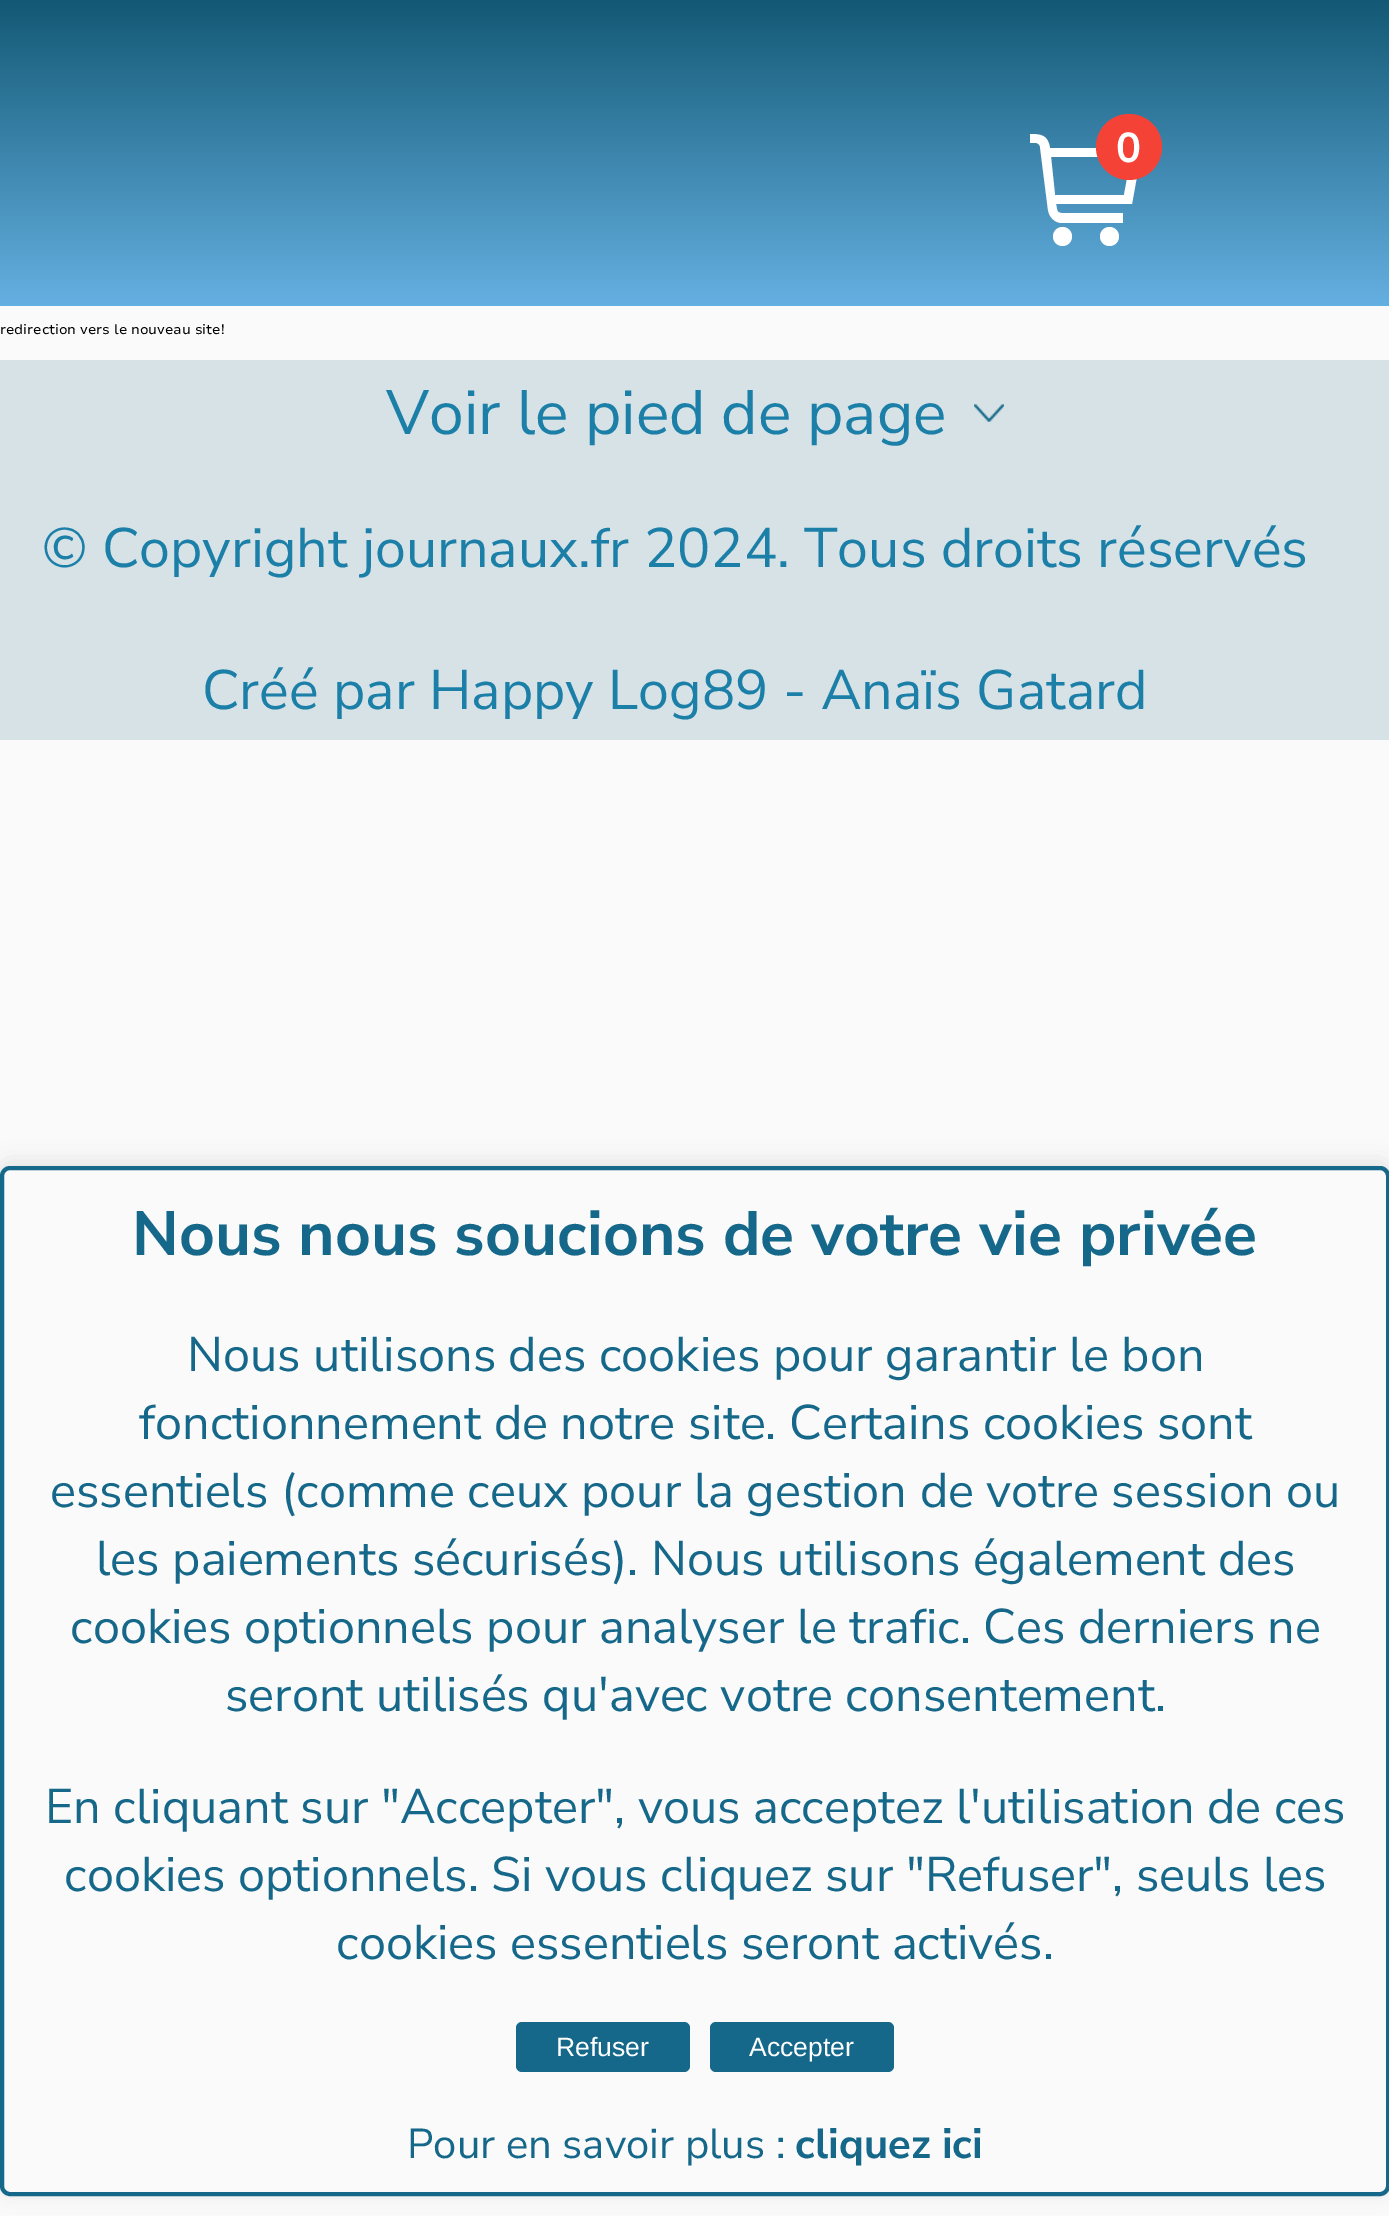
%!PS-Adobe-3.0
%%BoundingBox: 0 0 1389 2216
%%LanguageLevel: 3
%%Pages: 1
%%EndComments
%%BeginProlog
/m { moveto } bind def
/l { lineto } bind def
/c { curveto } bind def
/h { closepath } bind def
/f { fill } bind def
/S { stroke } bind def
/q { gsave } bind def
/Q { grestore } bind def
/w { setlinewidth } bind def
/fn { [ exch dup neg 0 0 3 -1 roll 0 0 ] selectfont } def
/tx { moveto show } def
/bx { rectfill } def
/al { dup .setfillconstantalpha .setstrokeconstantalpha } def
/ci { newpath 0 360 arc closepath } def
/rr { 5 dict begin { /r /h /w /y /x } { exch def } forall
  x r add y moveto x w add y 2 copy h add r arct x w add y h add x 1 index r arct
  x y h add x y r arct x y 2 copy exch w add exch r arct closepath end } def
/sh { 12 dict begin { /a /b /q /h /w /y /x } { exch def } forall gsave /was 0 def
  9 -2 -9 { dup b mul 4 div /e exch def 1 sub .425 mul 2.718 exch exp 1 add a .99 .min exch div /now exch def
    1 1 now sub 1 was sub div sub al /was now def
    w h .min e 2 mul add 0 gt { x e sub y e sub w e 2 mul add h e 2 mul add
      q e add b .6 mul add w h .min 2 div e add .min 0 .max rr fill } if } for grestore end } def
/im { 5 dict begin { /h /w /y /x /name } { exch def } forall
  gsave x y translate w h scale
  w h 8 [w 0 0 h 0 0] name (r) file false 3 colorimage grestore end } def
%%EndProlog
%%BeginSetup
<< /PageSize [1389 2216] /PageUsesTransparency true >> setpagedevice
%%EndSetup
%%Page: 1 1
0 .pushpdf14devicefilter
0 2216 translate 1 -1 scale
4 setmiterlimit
0.98 setgray
0 0 1389 2216 bx
q 0 0 m 1389 0 l 1389 306 l 0 306 l h clip newpath
<< /ShadingType 2 /ColorSpace /DeviceRGB /Coords [695 0 695 306] /Extend [true true] /Function << /FunctionType 2 /Domain [0 1] /C0 [0.075 0.349 0.459] /C1 [0.396 0.69 0.886] /N 1 >> >> shfill Q
1 setgray
1142 148 m 1050 148 l 1048 135 1041 134 1030 134 c 1030 143 l 1036 143 l 1038 143 1040 145 1040 147 c 1048 210 l 1049 217 1055 223 1062 223 c 1123 223 l 1123 213 l 1062 213 l 1059 213 1057 212 1057 209 c 1056 204 l 1132 204 l h 1124 195 m 1055 195 l 1051 157 l 1131 157 l h f
0.957 0.263 0.212 setrgbcolor
1129 147 33 ci f
/NunitoSans-Bold 41.75 fn
1 setgray
(0) 1116 162 tx
1062.5 236.5 9.5 ci f
1109.5 236.5 9.5 ci f
/NunitoSans-Regular 13.9 fn
0 setgray
(redirection vers le nouveau site!) 0 334 tx
0.839 0.886 0.902 setrgbcolor
0 360 1389 380 bx
/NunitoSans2-Regular 62.5 fn
0.106 0.498 0.659 setrgbcolor
(Voir le pied de page) 386 434 tx
(image0.raw) 974 404 30 18 im
/NunitoSans2-Regular 55.6 fn
(© Copyright journaux.fr 2024. Tous droits réservés) 42 567 tx
(Créé par Happy Log89 - Anaïs Gatard) 202 709 tx
0 setgray
0 1162 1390 1030 10 10 0.1 sh
0.98 setgray
2 1168 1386 1026 8 rr q f Q
0.086 0.408 0.541 setrgbcolor
4 w
S
/NunitoSans-Bold 62.5 fn
(Nous nous soucions de votre vie privée) 132 1255 tx
/NunitoSans2-Regular 48.65 fn
(Nous utilisons des cookies pour garantir le bon) 187 1371 tx
(fonctionnement de notre site. Certains cookies sont) 139 1439 tx
(essentiels \(comme ceux pour la gestion de votre session ou) 50 1507 tx
(les paiements sécurisés\). Nous utilisons également des) 96 1575 tx
(cookies optionnels pour analyser le trafic. Ces derniers ne) 70 1643 tx
(seront utilisés qu'avec votre consentement.) 225 1711 tx
(En cliquant sur "Accepter", vous acceptez l'utilisation de ces) 45 1823 tx
(cookies optionnels. Si vous cliquez sur "Refuser", seuls les) 64 1891 tx
(cookies essentiels seront activés.) 336 1959 tx
516 2022 174 50 6 rr f
/LiberationSans-Regular 26.5 fn
1 setgray
(Refuser) 556 2056 tx
0.086 0.408 0.541 setrgbcolor
710 2022 184 50 6 rr f
1 setgray
(Accepter) 749 2056 tx
/NunitoSans2-Regular 41.75 fn
0.086 0.408 0.541 setrgbcolor
(Pour en savoir plus :) 407 2158 tx
/NunitoSans-Bold 41.75 fn
(cliquez ici) 795 2158 tx
.poppdf14devicefilter showpage
%%EOF
